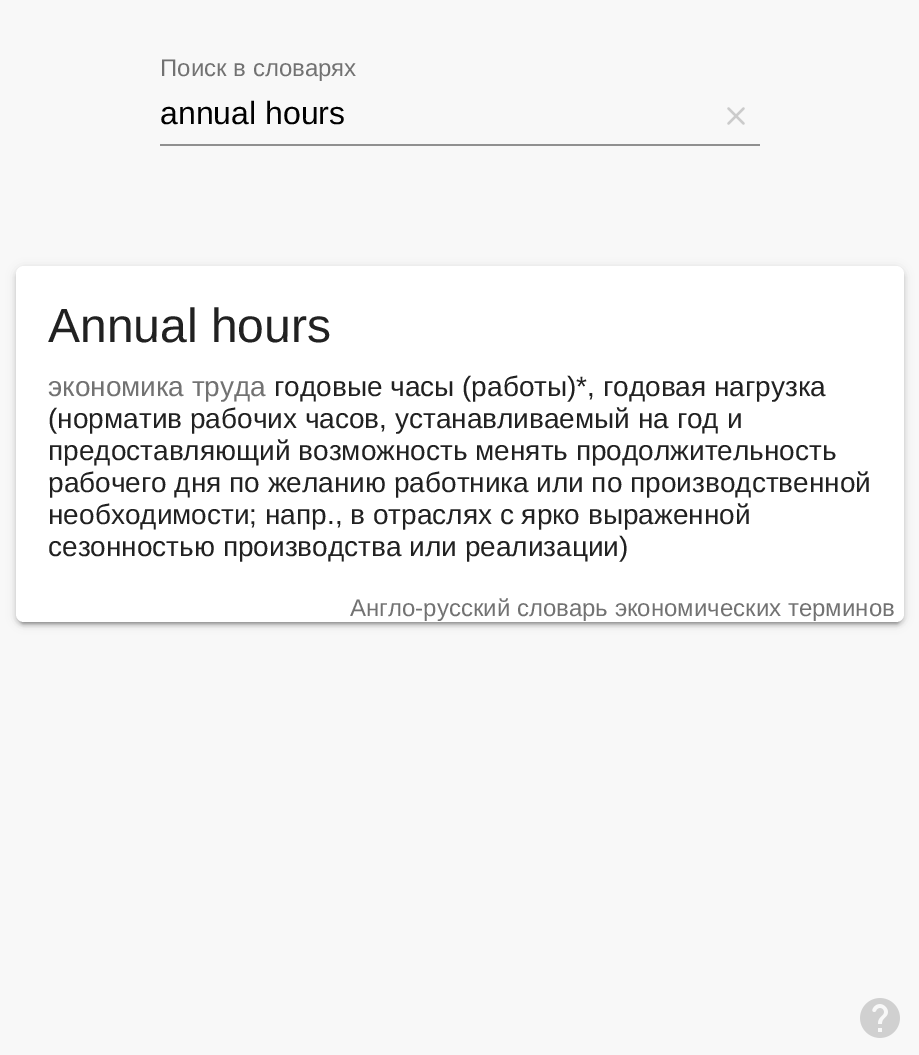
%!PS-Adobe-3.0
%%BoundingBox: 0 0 919 1055
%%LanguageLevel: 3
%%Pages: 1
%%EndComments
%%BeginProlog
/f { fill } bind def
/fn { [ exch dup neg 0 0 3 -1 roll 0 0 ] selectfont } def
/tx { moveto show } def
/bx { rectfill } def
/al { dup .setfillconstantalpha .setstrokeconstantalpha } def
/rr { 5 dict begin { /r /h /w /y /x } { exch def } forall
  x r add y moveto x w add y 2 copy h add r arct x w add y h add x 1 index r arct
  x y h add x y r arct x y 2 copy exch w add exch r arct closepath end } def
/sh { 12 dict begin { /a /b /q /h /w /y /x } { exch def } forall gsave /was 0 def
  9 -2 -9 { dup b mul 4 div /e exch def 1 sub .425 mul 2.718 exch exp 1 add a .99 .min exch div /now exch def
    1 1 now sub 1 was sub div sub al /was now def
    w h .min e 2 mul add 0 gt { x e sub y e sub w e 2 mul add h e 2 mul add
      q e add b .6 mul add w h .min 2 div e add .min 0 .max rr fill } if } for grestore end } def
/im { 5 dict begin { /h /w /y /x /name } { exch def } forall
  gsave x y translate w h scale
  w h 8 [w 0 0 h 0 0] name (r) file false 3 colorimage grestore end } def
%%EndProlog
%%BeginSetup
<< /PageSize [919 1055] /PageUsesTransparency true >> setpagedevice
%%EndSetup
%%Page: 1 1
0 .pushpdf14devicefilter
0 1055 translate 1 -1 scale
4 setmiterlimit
0.973 setgray
0 0 919 1055 bx
/LiberationSans-Regular 24 fn
0.447 setgray
(Поиск в словарях) 160 76 tx
/LiberationSans-Regular 32 fn
0 setgray
(annual hours) 160 124 tx
(image0.raw) 727 107 18 18 im
0.565 setgray
160 144 600 2 bx
0 setgray
16 268 888 356 8 5 0.12 sh
16 270 888 356 8 2 0.14 sh
20 276 880 348 4 1 0.2 sh
1 setgray
16 266 888 356 8 rr f
/LiberationSans-Regular 48 fn
0.129 setgray
(Annual hours) 48 342 tx
/LiberationSans-Regular 28 fn
0.447 setgray
(экономика труда) 48 396 tx
0.129 setgray
(годовые часы \(работы\)*, годовая нагрузка) 274 396 tx
(\(норматив рабочих часов, устанавливаемый на год и) 48 428 tx
(предоставляющий возможность менять продолжительность) 48 460 tx
(рабочего дня по желанию работника или по производственной) 48 492 tx
(необходимости; напр., в отраслях с ярко выраженной) 48 524 tx
(сезонностью производства или реализации\)) 48 556 tx
/LiberationSans-Regular 24 fn
0.447 setgray
(Англо-русский словарь экономических терминов) 350 616 tx
(image1.raw) 860 998 40 40 im
.poppdf14devicefilter showpage
%%EOF
